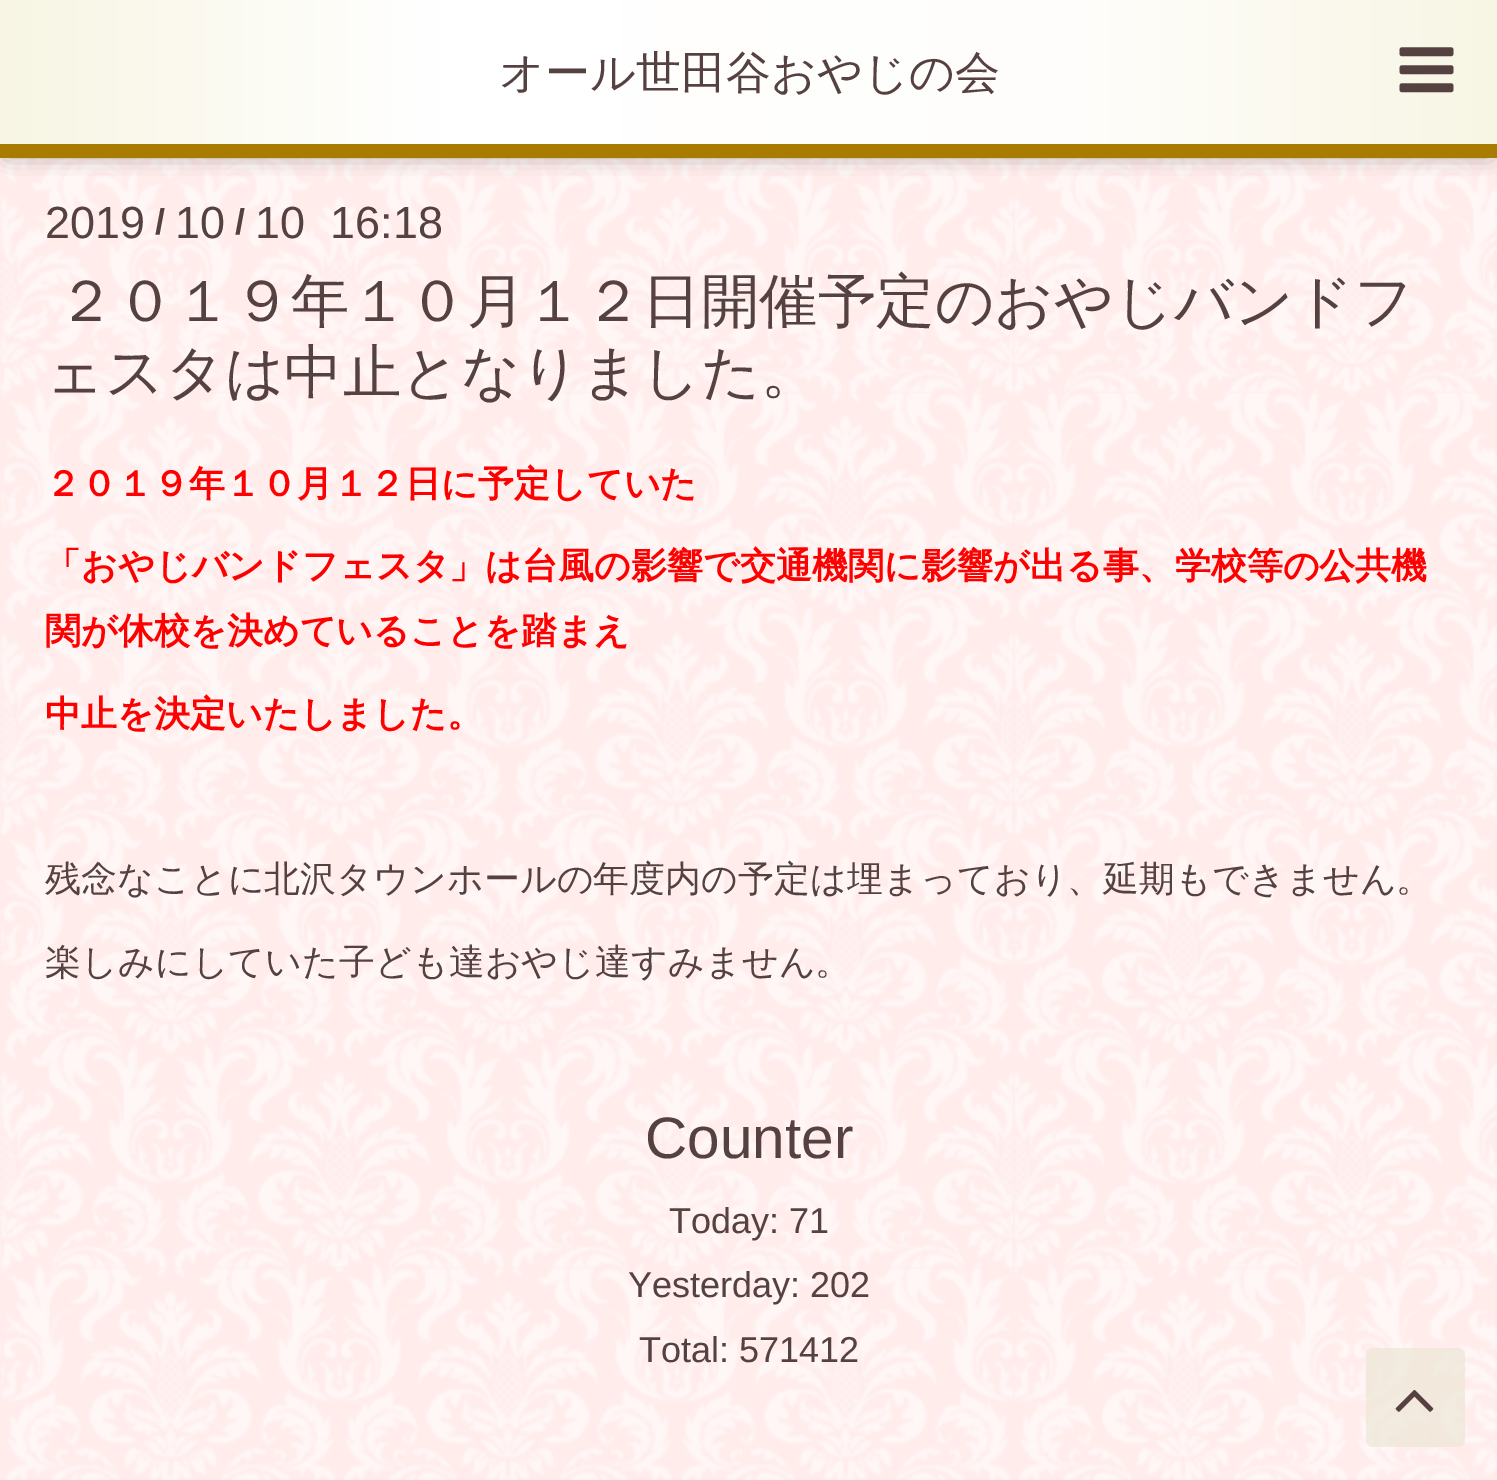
%!PS-Adobe-3.0
%%BoundingBox: 0 0 1497 1480
%%LanguageLevel: 3
%%Pages: 1
%%EndComments
%%BeginProlog
/f { fill } bind def
/fn { [ exch dup neg 0 0 3 -1 roll 0 0 ] selectfont } def
/tx { moveto show } def
/bx { rectfill } def
/al { dup .setfillconstantalpha .setstrokeconstantalpha } def
/rr { 5 dict begin { /r /h /w /y /x } { exch def } forall
  x r add y moveto x w add y 2 copy h add r arct x w add y h add x 1 index r arct
  x y h add x y r arct x y 2 copy exch w add exch r arct closepath end } def
/sh { 12 dict begin { /a /b /q /h /w /y /x } { exch def } forall gsave /was 0 def
  9 -2 -9 { dup b mul 4 div /e exch def 1 sub .425 mul 2.718 exch exp 1 add a .99 .min exch div /now exch def
    1 1 now sub 1 was sub div sub al /was now def
    w h .min e 2 mul add 0 gt { x e sub y e sub w e 2 mul add h e 2 mul add
      q e add b .6 mul add w h .min 2 div e add .min 0 .max rr fill } if } for grestore end } def
/im { 5 dict begin { /h /w /y /x /name } { exch def } forall
  gsave x y translate w h scale
  w h 8 [w 0 0 h 0 0] name (r) file false 3 colorimage grestore end } def
%%EndProlog
%%BeginSetup
<< /PageSize [1497 1480] /PageUsesTransparency true >> setpagedevice
%%EndSetup
%%Page: 1 1
0 .pushpdf14devicefilter
0 1480 translate 1 -1 scale
4 setmiterlimit
1 0.925 0.922 setrgbcolor
0 0 1497 1480 bx
(image0.raw) 0 158 1497 1322 im
0 setgray
9 11 1481 140 0 11 0.6 sh
(image1.raw) 0 0 1497 144 im
0.659 0.486 0 setrgbcolor
0 144 1497 14 bx
/WenQuanYiZenHei-Medium 45 fn
0.337 0.255 0.255 setrgbcolor
(オール世田谷おやじの会) 499 88 tx
(image2.raw) 1399 47 55 46 im
/LiberationSans-Regular 45 fn
(2019) 45 238 tx
/LiberationSans-Bold 36 fn
(/) 155 234 tx
/LiberationSans-Regular 45 fn
(10) 175 238 tx
/LiberationSans-Bold 36 fn
(/) 235 234 tx
/LiberationSans-Regular 45 fn
(10  16:18) 255 238 tx
/WenQuanYiZenHei-Medium 58.5 fn
(２０１９年１０月１２日開催予定のおやじバンドフ) 57 321 tx
(ェスタは中止となりました。) 45 392 tx
/WenQuanYiZenHei-Bold 36 fn
1 0 0 setrgbcolor
(２０１９年１０月１２日に予定していた) 45 496 tx
(「おやじバンドフェスタ」は台風の影響で交通機関に影響が出る事、学校等の公共機) 45 578 tx
(関が休校を決めていることを踏まえ) 45 643 tx
(中止を決定いたしました。) 45 726 tx
/WenQuanYiZenHei-Medium 36 fn
0.337 0.255 0.255 setrgbcolor
(残念なことに北沢タウンホールの年度内の予定は埋まっており、延期もできません。) 45 891 tx
(楽しみにしていた子ども達おやじ達すみません。) 45 974 tx
/LiberationSans-Regular 58.5 fn
(Counter) 645 1158 tx
/LiberationSans-Regular 36 fn
(Today: 71) 669 1233 tx
(Yesterday: 202) 628 1297 tx
(Total: 571412) 639 1362 tx
0.7 al
0.929 0.902 0.839 setrgbcolor
1366 1348 99 99 7 rr f
1 al
(image3.raw) 1395 1390 39 22 im
.poppdf14devicefilter showpage
%%EOF
